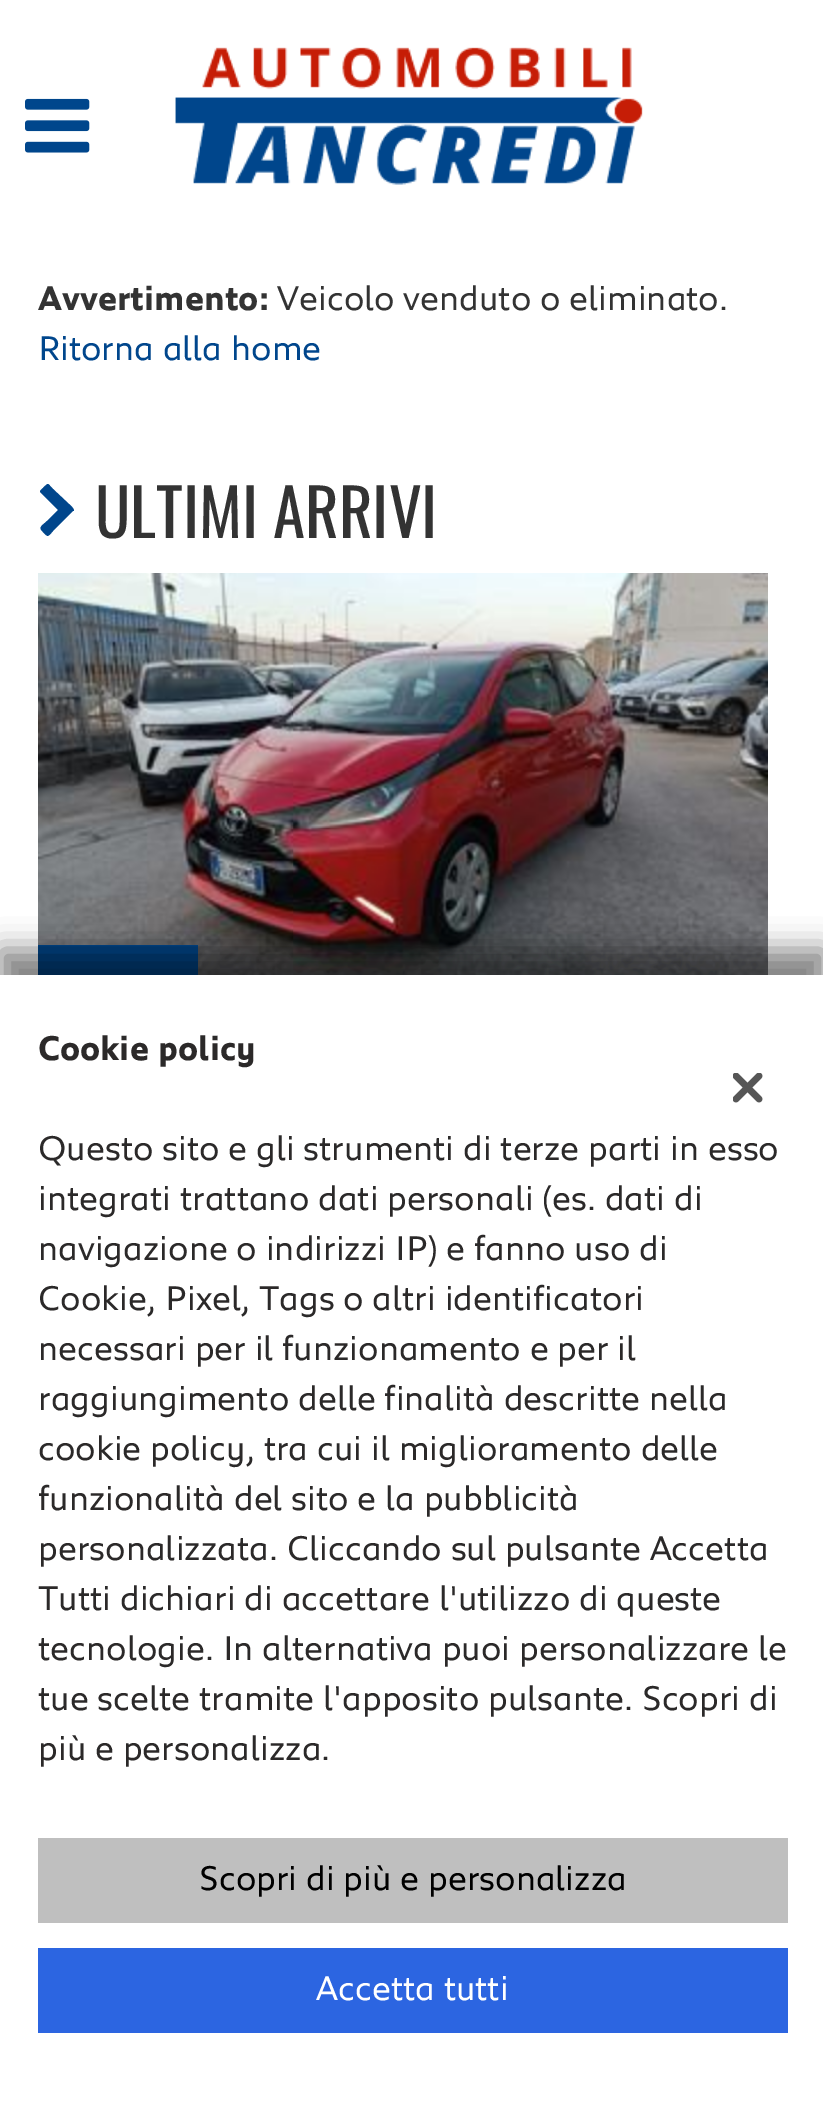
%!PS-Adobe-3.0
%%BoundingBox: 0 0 823 2107
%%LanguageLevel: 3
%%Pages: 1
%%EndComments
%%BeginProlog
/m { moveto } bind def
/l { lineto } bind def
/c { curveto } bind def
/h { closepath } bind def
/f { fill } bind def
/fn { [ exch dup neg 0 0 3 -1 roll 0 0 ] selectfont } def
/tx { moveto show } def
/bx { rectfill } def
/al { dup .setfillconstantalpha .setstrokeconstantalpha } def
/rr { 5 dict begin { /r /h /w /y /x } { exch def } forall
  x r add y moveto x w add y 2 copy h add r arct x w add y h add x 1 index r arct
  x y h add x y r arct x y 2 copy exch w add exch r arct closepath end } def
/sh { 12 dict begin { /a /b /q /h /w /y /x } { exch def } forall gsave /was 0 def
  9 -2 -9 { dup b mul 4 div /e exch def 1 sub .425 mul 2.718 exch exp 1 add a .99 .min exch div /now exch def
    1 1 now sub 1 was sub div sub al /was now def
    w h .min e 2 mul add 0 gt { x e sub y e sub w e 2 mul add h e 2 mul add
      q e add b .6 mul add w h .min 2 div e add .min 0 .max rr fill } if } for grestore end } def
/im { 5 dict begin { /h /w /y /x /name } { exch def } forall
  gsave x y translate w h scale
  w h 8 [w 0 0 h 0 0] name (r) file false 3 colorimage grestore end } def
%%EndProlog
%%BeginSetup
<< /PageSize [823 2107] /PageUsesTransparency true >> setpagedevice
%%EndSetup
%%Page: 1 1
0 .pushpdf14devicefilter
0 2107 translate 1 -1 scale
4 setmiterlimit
1 setgray
0 0 823 2107 bx
(image0.raw) 25 98 65 55 im
(image1.raw) 175 47 468 138 im
/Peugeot-Bold 35 fn
0.2 setgray
(Avvertimento:) 38 310 tx
/Peugeot-Regular 35 fn
(Veicolo venduto o eliminato.) 277 310 tx
0 0.275 0.549 setrgbcolor
(Ritorna alla home) 38 360 tx
73 511 m 53 531 l 47 538 48 537 42 531 c 38 527 43 525 47 521 c 58 510 l 40 492 l 40 490 42 489 43 488 c 49 482 47 483 53 489 c 69 504 l 70 505 74 508 74 511 c h f
/Oswald-Regular 65 fn
0.2 setgray
(ULTIMI ARRIVI) 95 538 tx
(image2.raw) 38 573 730 402 im
0 0.275 0.549 setrgbcolor
38 945 160 30 bx
0 setgray
0 950 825 1133 0 15 0.5 sh
1 setgray
0 975 823 1132 bx
/Peugeot-Bold 35 fn
0.169 0.161 0.161 setrgbcolor
(Cookie policy) 38 1060 tx
/Peugeot-Regular 35 fn
(Questo sito e gli strumenti di terze parti in esso) 38 1160 tx
(integrati trattano dati personali \(es. dati di) 38 1210 tx
(navigazione o indirizzi IP\) e fanno uso di) 38 1260 tx
(Cookie, Pixel, Tags o altri identificatori) 38 1310 tx
(necessari per il funzionamento e per il) 38 1360 tx
(raggiungimento delle finalità descritte nella) 38 1410 tx
(cookie policy, tra cui il miglioramento delle) 38 1460 tx
(funzionalità del sito e la pubblicità) 38 1510 tx
(personalizzata. Cliccando sul pulsante Accetta) 38 1560 tx
(Tutti dichiari di accettare l'utilizzo di queste) 38 1610 tx
(tecnologie. In alternativa puoi personalizzare le) 38 1660 tx
(tue scelte tramite l'apposito pulsante. Scopri di) 38 1710 tx
(più e personalizza.) 38 1760 tx
0.749 setgray
38 1838 750 85 bx
0 setgray
(Scopri di più e personalizza) 199 1890 tx
0.173 0.396 0.882 setrgbcolor
38 1948 750 85 bx
1 setgray
(Accetta tutti) 316 2000 tx
(image3.raw) 733 1073 30 30 im
.poppdf14devicefilter showpage
%%EOF
